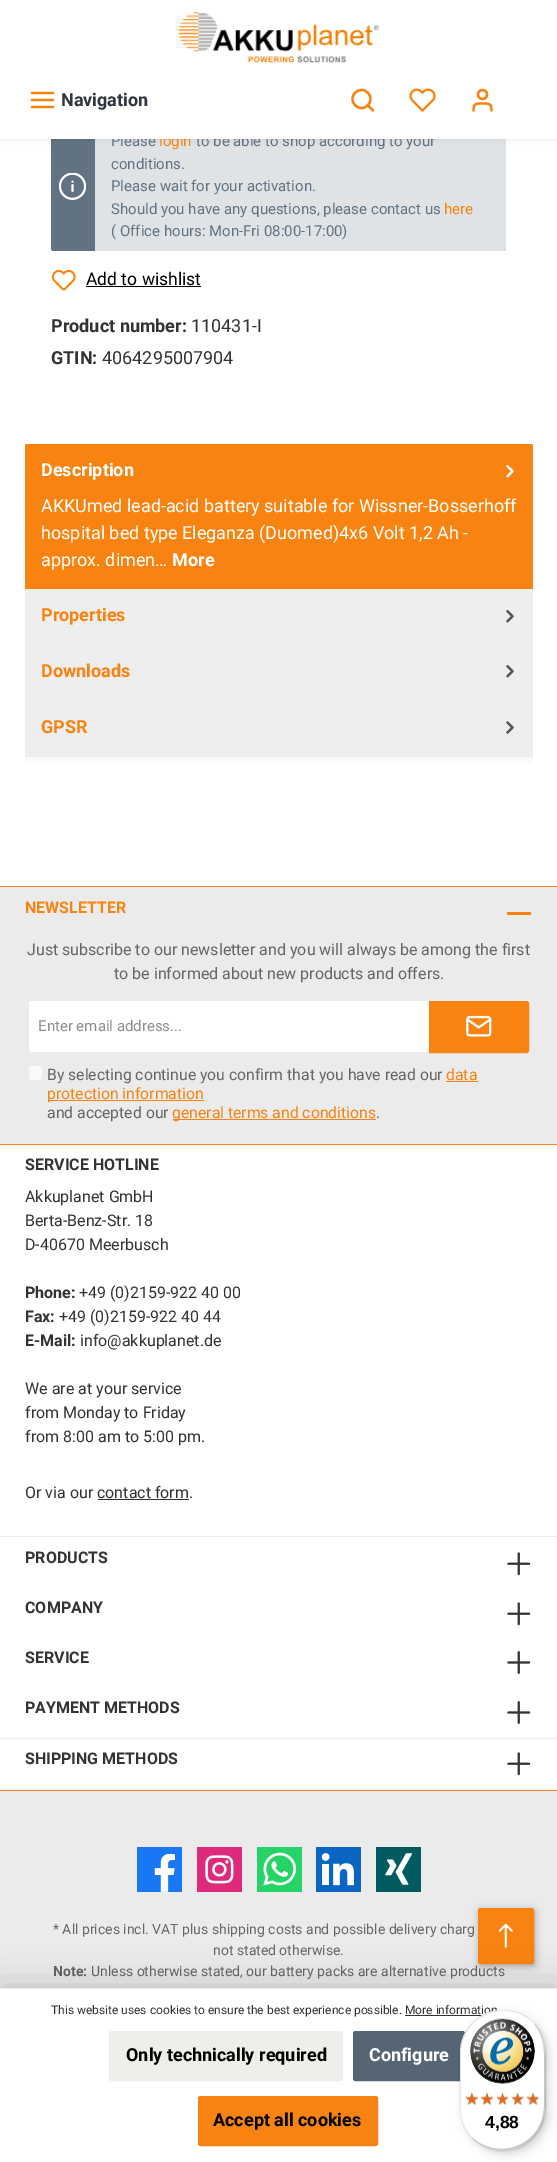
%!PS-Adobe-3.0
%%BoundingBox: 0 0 557 2162
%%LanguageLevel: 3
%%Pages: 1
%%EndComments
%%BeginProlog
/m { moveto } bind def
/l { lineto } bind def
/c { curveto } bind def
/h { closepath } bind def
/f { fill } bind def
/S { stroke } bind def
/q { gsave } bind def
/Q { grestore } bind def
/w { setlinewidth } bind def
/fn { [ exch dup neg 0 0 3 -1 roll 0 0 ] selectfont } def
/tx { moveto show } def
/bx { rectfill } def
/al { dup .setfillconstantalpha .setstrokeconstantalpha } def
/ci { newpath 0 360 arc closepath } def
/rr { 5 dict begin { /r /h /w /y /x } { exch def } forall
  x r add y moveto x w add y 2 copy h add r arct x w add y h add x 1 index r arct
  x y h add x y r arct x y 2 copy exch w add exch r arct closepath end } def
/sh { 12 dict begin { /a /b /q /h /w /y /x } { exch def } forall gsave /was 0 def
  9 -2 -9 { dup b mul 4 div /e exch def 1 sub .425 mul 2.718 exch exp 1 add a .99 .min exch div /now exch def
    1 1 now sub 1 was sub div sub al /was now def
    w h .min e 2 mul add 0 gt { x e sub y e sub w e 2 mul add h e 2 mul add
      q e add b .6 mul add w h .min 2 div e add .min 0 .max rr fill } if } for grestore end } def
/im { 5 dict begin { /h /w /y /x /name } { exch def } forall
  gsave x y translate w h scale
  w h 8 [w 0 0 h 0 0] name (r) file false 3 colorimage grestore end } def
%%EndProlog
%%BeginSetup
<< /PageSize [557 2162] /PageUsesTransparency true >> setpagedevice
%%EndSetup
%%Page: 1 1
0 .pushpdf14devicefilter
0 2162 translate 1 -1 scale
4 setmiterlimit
1 setgray
0 0 557 2162 bx
0.38 0.447 0.51 setrgbcolor
51 123 455 128 2.5 rr f
0.875 0.89 0.902 setrgbcolor
95 123 m 503.5 123 l 505 123 506 124 506 125.5 c 506 248.5 l 506 250 505 251 503.5 251 c 95 251 l h f
0 setgray
0 0 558 139 0 3 0.1 sh
/Roboto-Regular 15 fn
0.38 0.447 0.51 setrgbcolor
(Please) 111 146 tx
0.976 0.514 0.063 setrgbcolor
(login) 159 146 tx
0.38 0.447 0.51 setrgbcolor
(to be able to shop according to your) 196 146 tx
1 setgray
0 0 557 139 bx
(image0.raw) 178 12 201 51 im
0.976 0.514 0.063 setrgbcolor
2.3 w
1 setlinecap
1 setlinejoin
32 100 m 53 100 l 32 93 m 53 93 l 32 107 m 53 107 l S
/Roboto-Bold 18 fn
0.18 0.216 0.251 setrgbcolor
(Navigation) 61 106 tx
0.976 0.514 0.063 setrgbcolor
0 setlinecap
0 setlinejoin
361.5 99 9 ci S
1 setlinecap
1 setlinejoin
373 110.5 m 368 105.5 l S
(image1.raw) 409 88 27 24 im
491.5 110.5 m 491.5 103 489 103.5 482.5 103.5 c 476 103.5 473.5 103 473.5 110.5 c S
0 setlinecap
0 setlinejoin
482.5 94.5 4.5 ci S
(image2.raw) 59 173 27 27 im
/Roboto-Regular 15 fn
0.38 0.447 0.51 setrgbcolor
(conditions.) 111 169 tx
(Please wait for your activation.) 111 191 tx
(Should you have any questions, please contact us) 111 214 tx
0.976 0.514 0.063 setrgbcolor
(here) 444 214 tx
0.38 0.447 0.51 setrgbcolor
(\( Office hours: Mon-Fri 08:00-17:00\)) 111 236 tx
(image3.raw) 51 269 25 22 im
/Roboto-Regular 17.5 fn
0 setgray
(Add to wishlist) 86 285 tx
86 286 115 1 bx
/Roboto-Bold 18 fn
0.2 setgray
(Product number:) 51 332 tx
/Roboto-Regular 18 fn
(110431-I) 191 332 tx
/Roboto-Bold 18 fn
(GTIN:) 51 364 tx
/Roboto-Regular 18 fn
(4064295007904) 102 364 tx
q
25 444 508 367 2.5 rr clip newpath
0.98 setgray
30 444 m 530.5 444 l 532 444 533 445 533 446.5 c 533 763 l 25 763 l 25 449 l 25 446 27 444 30 444 c h f
Q
0.976 0.514 0.063 setrgbcolor
27.5 444 m 530.5 444 l 532 444 533 445 533 446.5 c 533 589 l 25 589 l 25 446.5 l 25 445 26 444 27.5 444 c h f
/Roboto-Bold 18 fn
1 setgray
(Description) 41 476 tx
(image4.raw) 506 465 8 13 im
/Roboto-Regular 18 fn
(AKKUmed lead-acid battery suitable for Wissner-Bosserhoff) 41 512 tx
(hospital bed type Eleganza \(Duomed\)4x6 Volt 1,2 Ah -) 41 539 tx
(approx. dimen…) 41 566 tx
/Roboto-Bold 18 fn
(More) 172 566 tx
0.933 setgray
25 589 508 168 bx
0.976 0.514 0.063 setrgbcolor
(Properties) 41 621 tx
(image5.raw) 506 610 8 13 im
(Downloads) 41 677 tx
(image5.raw) 506 665 8 13 im
(GPSR) 41 733 tx
(image6.raw) 506 721 8 13 im
0.922 setgray
0 887 557 256 bx
0.945 0.514 0.18 setrgbcolor
0 886 557 1 bx
0 1144 557 1 bx
0.941 0.933 0.918 setrgbcolor
0 1143 557 1 bx
/Roboto-Bold 16 fn
0.976 0.514 0.063 setrgbcolor
(NEWSLETTER) 25 913 tx
507 912 24 3 bx
/Roboto-Regular 16 fn
0.4 setgray
(Just subscribe to our newsletter and you will always be among the first) 27 955 tx
(to be informed about new products and offers.) 114 979 tx
1 setgray
31 1001 m 429 1001 l 429 1049 l 29 1049 l 29 1004 l 29 1002 30 1001 31 1001 c h f
30 1049 399 3 bx
/Roboto-Regular 15 fn
0.557 setgray
(Enter email address...) 38 1031 tx
0.976 0.514 0.063 setrgbcolor
429.5 1001.5 m 526.5 1001.5 l 527.5 1001.5 528.5 1002.5 528.5 1003.5 c 528.5 1050.5 l 528.5 1051.5 527.5 1052.5 526.5 1052.5 c 429.5 1052.5 l h q f Q
1 w
S
(image7.raw) 466 1015 26 22 im
0.98 setgray
28.5 1065.5 14 15 3.5 rr q f Q
0.941 0.933 0.918 setrgbcolor
S
/Roboto-Regular 15.75 fn
0.4 setgray
(By selecting continue you confirm that you have read our) 47 1080 tx
0.976 0.514 0.063 setrgbcolor
(data) 446 1080 tx
446 1081 32 1 bx
48 1100 156 1 bx
(protection information) 47 1099 tx
0.4 setgray
(and accepted our) 47 1118 tx
0.976 0.514 0.063 setrgbcolor
173 1119 203 1 bx
(general terms and conditions) 172 1118 tx
0.4 setgray
(.) 376 1118 tx
0.941 0.933 0.918 setrgbcolor
0 1536 557 1 bx
/Roboto-Bold 16 fn
0.2 setgray
(SERVICE HOTLINE) 25 1170 tx
/Roboto-Regular 16 fn
(Akkuplanet GmbH) 25 1202 tx
(Berta-Benz-Str. 18) 25 1226 tx
(D-40670 Meerbusch) 25 1250 tx
/Roboto-Bold 16 fn
(Phone:) 25 1298 tx
/Roboto-Regular 16 fn
(+49 \(0\)2159-922 40 00) 79 1298 tx
/Roboto-Bold 16 fn
(Fax:) 25 1322 tx
/Roboto-Regular 16 fn
(+49 \(0\)2159-922 40 44) 59 1322 tx
/Roboto-Bold 16 fn
(E-Mail:) 25 1346 tx
/Roboto-Regular 16 fn
(info@akkuplanet.de) 80 1346 tx
(We are at your service) 25 1394 tx
(from Monday to Friday) 25 1418 tx
(from 8:00 am to 5:00 pm.) 25 1442 tx
(Or via our contact form.) 25 1498 tx
98 1499 91 1 bx
/Roboto-Bold 16 fn
(PRODUCTS) 25 1563 tx
(image8.raw) 507 1552 24 24 im
(COMPANY) 25 1613 tx
(image8.raw) 507 1602 24 24 im
(SERVICE) 25 1663 tx
(image9.raw) 507 1651 24 23 im
0.941 0.933 0.918 setrgbcolor
0 1738 557 1 bx
0.2 setgray
(PAYMENT METHODS) 25 1713 tx
(image9.raw) 507 1701 24 23 im
0.941 0.933 0.918 setrgbcolor
0 1789 557 1 bx
0.2 setgray
(SHIPPING METHODS) 25 1764 tx
(image8.raw) 507 1752 24 24 im
0.922 setgray
0 1791 557 197 bx
0.945 0.514 0.18 setrgbcolor
0 1790 557 1 bx
(image10.raw) 137 1847 45 45 im
(image11.raw) 197 1847 45 45 im
(image12.raw) 257 1847 45 45 im
(image13.raw) 316 1847 45 45 im
(image14.raw) 376 1847 45 45 im
/Roboto-Regular 14 fn
0.4 setgray
(* All prices incl. VAT plus shipping costs and possible delivery charg) 53 1934 tx
(not stated otherwise.) 213 1955 tx
/Roboto-Bold 14 fn
(Note:) 53 1976 tx
/Roboto-Regular 14 fn
(Unless otherwise stated, our battery packs are alternative products) 91 1976 tx
0 setgray
479 1910 56 56 2.5 4 0.3 sh
0.976 0.514 0.063 setrgbcolor
478.5 1908.5 55 55 2 rr q f Q
S
(image15.raw) 498 1924 15 24 im
0 setgray
0 1988 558 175 0 19 0.2 sh
1 setgray
0 1989 557 173 bx
0.933 setgray
0 1988 557 1 bx
/Roboto-Regular 12 fn
0.2 setgray
(This website uses cookies to ensure the best experience possible. More information) 51 2014 tx
405 2015 78 1 bx
0.941 0.933 0.918 setrgbcolor
109.5 2031.5 233 49 2 rr q f Q
S
/Roboto-Bold 18 fn
0 setgray
(Only technically required) 126 2061 tx
0.337 0.396 0.451 setrgbcolor
353.5 2031.5 111 49 2 rr q f Q
S
1 setgray
(Configure) 369 2061 tx
0.976 0.514 0.063 setrgbcolor
198.5 2096.5 179 49 2 rr q f Q
S
0 setgray
(Accept all cookies) 213 2126 tx
464 2014 85 140 42.5 5 0.15 sh
461 2011 85 140 42.5 1 0.15 sh
1 setgray
460 2010 85 140 42.5 rr f
0.1 al
0 setgray
504 2011 m 515 2011 525 2015 533 2022 c 512 2002 475 2008 463 2036 c 458 2048 460 2066 460 2080 c 460 2101 457 2122 472 2138 c 465 2130 461 2120 461 2109 c 461 2054 l 461 2030 480 2011 504 2011 c h f
0.2 al
472 2138 m 493 2158 530 2152 542 2124 c 547 2112 545 2094 545 2080 c 545 2059 548 2038 533 2022 c 540 2030 544 2040 544 2051 c 544 2106 l 544 2130 525 2149 501 2149 c 490 2149 480 2145 472 2138 c h f
0.196 setgray
472 2137 m 493 2159 530 2152 542 2124 c 547 2112 545 2094 545 2080 c 545 2059 548 2038 532 2022 c 547 2038 544 2060 544 2080 c 544 2093 546 2111 541 2123 c 529 2151 493 2157 472 2137 c h f
0.3 al
1 setgray
472 2137 m 493 2159 530 2152 542 2124 c 547 2112 545 2094 545 2080 c 545 2059 548 2038 532 2022 c 547 2038 544 2060 544 2080 c 544 2093 546 2111 541 2123 c 529 2151 493 2157 472 2137 c h f
1 al
(image16.raw) 470 2018 65 66 im
(image17.raw) 465 2092 13 13 im
(image18.raw) 482 2092 11 13 im
(image18.raw) 497 2092 11 13 im
(image19.raw) 512 2092 13 13 im
(image20.raw) 526 2092 14 13 im
(image21.raw) 465 2092 14 13 im
(image22.raw) 480 2092 14 13 im
(image23.raw) 496 2092 13 13 im
(image24.raw) 511 2092 13 13 im
(image25.raw) 526 2092 12 13 im
/LiberationSans-Bold 17.5 fn
0 setgray
(4,88) 485 2128 tx
.poppdf14devicefilter showpage
%%EOF
